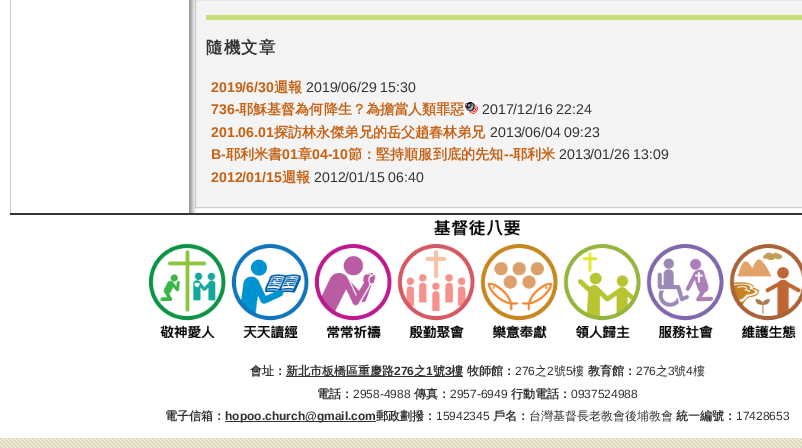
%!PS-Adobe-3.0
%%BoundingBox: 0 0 802 448
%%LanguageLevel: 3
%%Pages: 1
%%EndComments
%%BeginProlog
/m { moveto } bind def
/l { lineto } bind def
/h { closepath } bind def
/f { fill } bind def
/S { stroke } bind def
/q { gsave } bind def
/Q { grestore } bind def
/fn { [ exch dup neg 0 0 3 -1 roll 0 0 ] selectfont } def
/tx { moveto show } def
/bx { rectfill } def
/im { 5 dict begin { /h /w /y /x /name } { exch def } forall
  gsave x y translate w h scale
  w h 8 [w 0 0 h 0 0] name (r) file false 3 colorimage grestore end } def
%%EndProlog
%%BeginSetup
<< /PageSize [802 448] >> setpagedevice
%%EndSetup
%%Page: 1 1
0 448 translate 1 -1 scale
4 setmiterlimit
1 setgray
0 0 802 448 bx
(image0.raw) 0 438 802 10 im
(image1.raw) 10 0 187 213 im
0.957 setgray
195.5 -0.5 m 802.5 -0.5 l 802.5 207.5 l 195.5 207.5 l h q f Q
0.8 setgray
S
0.776 0.875 0.471 setrgbcolor
206 15 596 5 bx
/WenQuanYiZenHei-Bold 16.5 fn
0.2 setgray
206 53 m 1 0 (隨機文章) ashow
/LiberationSans-Bold 14.1 fn
0.78 0.38 0.078 setrgbcolor
(2019/6/30) 211 92 tx
/WenQuanYiZenHei-Bold 14.1 fn
(週報) 274 92 tx
/LiberationSans-Regular 14.1 fn
0.2 setgray
(2019/06/29 15:30) 306 92 tx
/LiberationSans-Bold 14.1 fn
0.78 0.38 0.078 setrgbcolor
(736-) 211 114 tx
/WenQuanYiZenHei-Bold 14.1 fn
(耶穌基督為何降生？為擔當人類罪惡) 239 114 tx
(image2.raw) 465 102 13 12 im
/LiberationSans-Regular 14.1 fn
0.2 setgray
(2017/12/16 22:24) 482 114 tx
/LiberationSans-Bold 14.1 fn
0.78 0.38 0.078 setrgbcolor
(201.06.01) 211 137 tx
/WenQuanYiZenHei-Bold 14.1 fn
(探訪林永傑弟兄的岳父趙春林弟兄) 274 137 tx
/LiberationSans-Regular 14.1 fn
0.2 setgray
(2013/06/04 09:23) 490 137 tx
/LiberationSans-Bold 14.1 fn
0.78 0.38 0.078 setrgbcolor
(B-) 211 159 tx
/WenQuanYiZenHei-Bold 14.1 fn
(耶利米書) 226 159 tx
/LiberationSans-Bold 14.1 fn
(01) 282 159 tx
/WenQuanYiZenHei-Bold 14.1 fn
(章) 298 159 tx
/LiberationSans-Bold 14.1 fn
(04-10) 312 159 tx
/WenQuanYiZenHei-Bold 14.1 fn
(節：堅持順服到底的先知) 348 159 tx
/LiberationSans-Bold 14.1 fn
(--) 504 159 tx
/WenQuanYiZenHei-Bold 14.1 fn
(耶利米) 513 159 tx
/LiberationSans-Regular 14.1 fn
0.2 setgray
(2013/01/26 13:09) 559 159 tx
/LiberationSans-Bold 14.1 fn
0.78 0.38 0.078 setrgbcolor
(2012/01/15) 211 182 tx
/WenQuanYiZenHei-Bold 14.1 fn
(週報) 282 182 tx
/LiberationSans-Regular 14.1 fn
0.2 setgray
(2012/01/15 06:40) 314 182 tx
10 213 792 2 bx
(image3.raw) 149 220 653 118 im
/WenQuanYiZenHei-Bold 12 fn
(會址：) 250 375 tx
286 376 177 1 bx
(新北市板橋區重慶路) 286 375 tx
/LiberationSans-Bold 12 fn
(276) 394 375 tx
/WenQuanYiZenHei-Bold 12 fn
(之) 414 375 tx
/LiberationSans-Bold 12 fn
(1) 426 375 tx
/WenQuanYiZenHei-Bold 12 fn
(號) 433 375 tx
/LiberationSans-Bold 12 fn
(3) 445 375 tx
/WenQuanYiZenHei-Bold 12 fn
(樓 牧師館：) 451 375 tx
/LiberationSans-Regular 12 fn
(276) 515 375 tx
/WenQuanYiZenHei-Medium 12 fn
(之) 535 375 tx
/LiberationSans-Regular 12 fn
(2) 547 375 tx
/WenQuanYiZenHei-Medium 12 fn
(號) 554 375 tx
/LiberationSans-Regular 12 fn
(5) 566 375 tx
/WenQuanYiZenHei-Medium 12 fn
(樓) 572 375 tx
/WenQuanYiZenHei-Bold 12 fn
(教育館：) 588 375 tx
/LiberationSans-Regular 12 fn
(276) 636 375 tx
/WenQuanYiZenHei-Medium 12 fn
(之) 656 375 tx
/LiberationSans-Regular 12 fn
(3) 668 375 tx
/WenQuanYiZenHei-Medium 12 fn
(號) 674 375 tx
/LiberationSans-Regular 12 fn
(4) 686 375 tx
/WenQuanYiZenHei-Medium 12 fn
(樓) 693 375 tx
/WenQuanYiZenHei-Bold 12 fn
(電話：) 317 398 tx
/LiberationSans-Regular 12 fn
(2958-4988) 353 398 tx
/WenQuanYiZenHei-Bold 12 fn
(傳真：) 414 398 tx
/LiberationSans-Regular 12 fn
(2957-6949) 450 398 tx
/WenQuanYiZenHei-Bold 12 fn
(行動電話：) 511 398 tx
/LiberationSans-Regular 12 fn
(0937524988) 571 398 tx
/WenQuanYiZenHei-Bold 12 fn
(電子信箱：) 165 420 tx
225 421 151 1 bx
/LiberationSans-Bold 12 fn
(hopoo.church@gmail.com) 225 420 tx
/WenQuanYiZenHei-Bold 12 fn
(郵政劃撥：) 376 420 tx
/LiberationSans-Regular 12 fn
(15942345) 436 420 tx
/WenQuanYiZenHei-Bold 12 fn
(戶名：) 493 420 tx
/WenQuanYiZenHei-Medium 12 fn
(台灣基督長老教會後埔教會) 529 420 tx
/WenQuanYiZenHei-Bold 12 fn
(統一編號：) 676 420 tx
/LiberationSans-Regular 12 fn
(17428653) 736 420 tx
showpage
%%EOF
